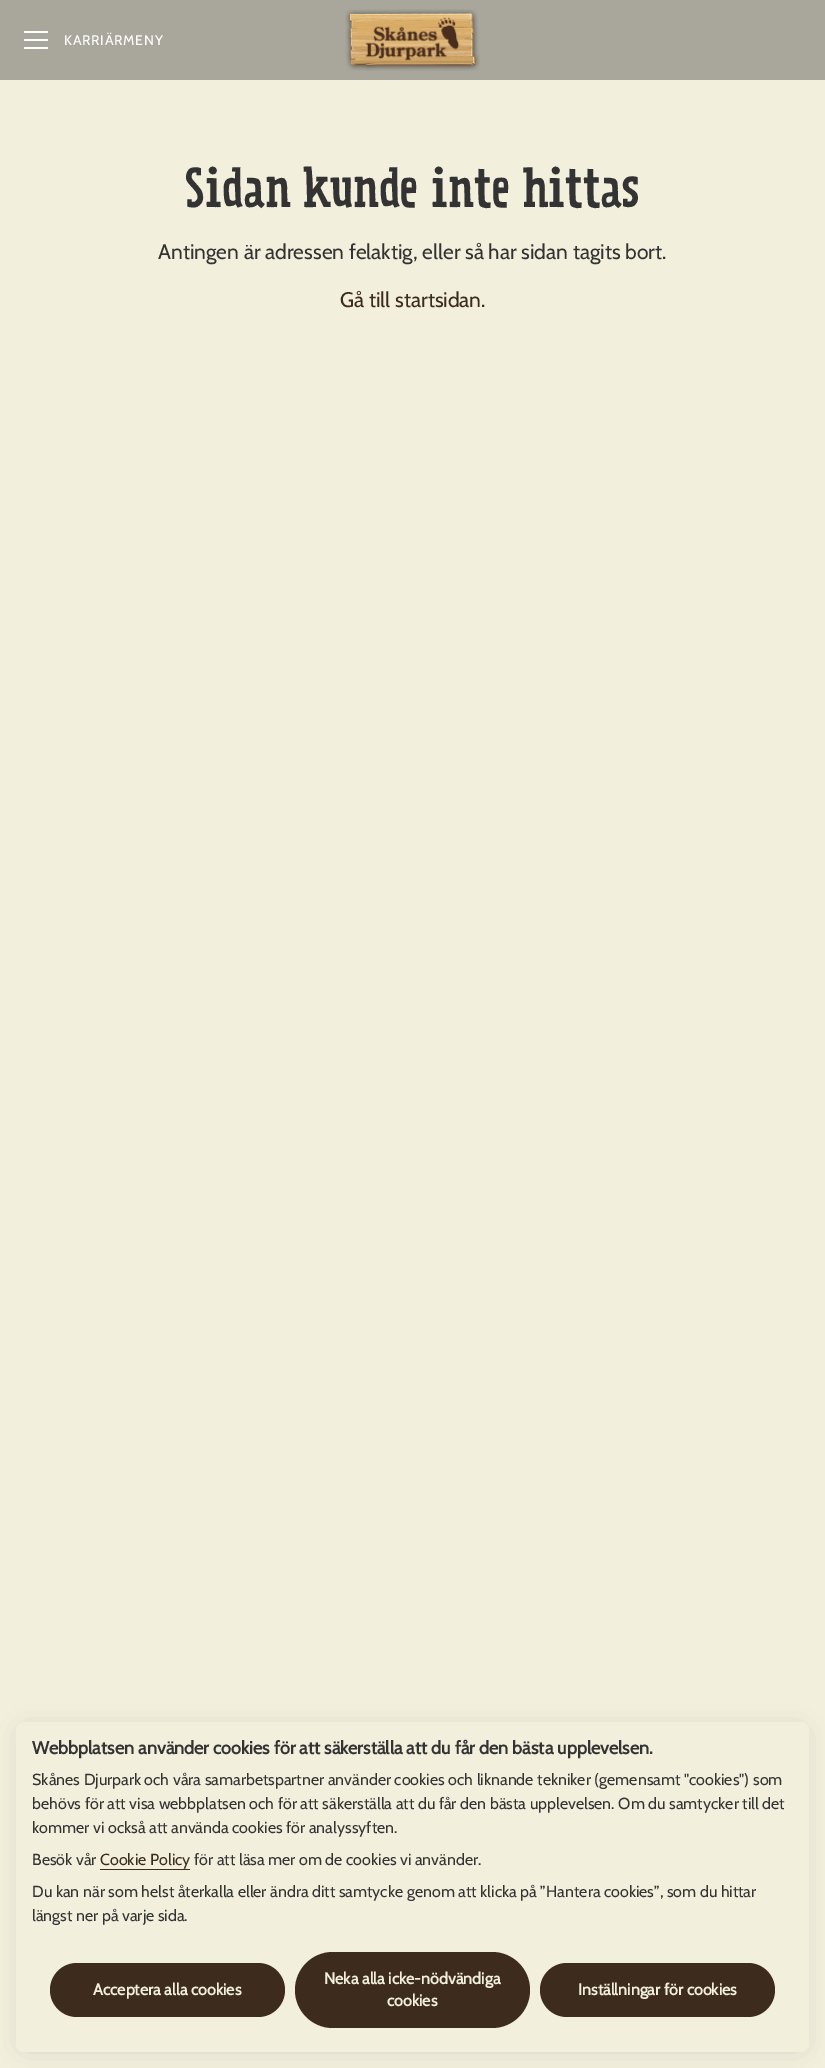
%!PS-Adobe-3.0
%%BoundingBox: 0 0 825 2068
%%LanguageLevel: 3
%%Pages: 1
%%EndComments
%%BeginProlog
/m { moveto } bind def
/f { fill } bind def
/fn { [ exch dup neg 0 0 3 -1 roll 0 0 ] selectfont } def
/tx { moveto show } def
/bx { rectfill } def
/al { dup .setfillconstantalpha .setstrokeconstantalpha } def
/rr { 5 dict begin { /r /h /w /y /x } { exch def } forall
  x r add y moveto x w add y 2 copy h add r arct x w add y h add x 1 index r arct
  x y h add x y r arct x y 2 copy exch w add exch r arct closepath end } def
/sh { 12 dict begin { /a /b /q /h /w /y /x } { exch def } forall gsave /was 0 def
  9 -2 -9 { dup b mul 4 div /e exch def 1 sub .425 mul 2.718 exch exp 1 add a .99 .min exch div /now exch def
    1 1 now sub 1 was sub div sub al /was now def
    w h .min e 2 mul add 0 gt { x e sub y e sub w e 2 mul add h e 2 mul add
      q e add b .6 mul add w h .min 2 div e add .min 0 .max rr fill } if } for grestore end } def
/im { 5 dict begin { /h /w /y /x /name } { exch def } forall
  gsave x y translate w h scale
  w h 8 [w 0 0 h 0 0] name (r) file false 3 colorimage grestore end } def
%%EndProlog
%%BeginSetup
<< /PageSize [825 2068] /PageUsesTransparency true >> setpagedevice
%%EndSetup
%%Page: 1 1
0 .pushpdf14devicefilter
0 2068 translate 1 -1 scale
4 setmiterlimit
0.949 0.937 0.867 setrgbcolor
0 0 825 2068 bx
0.663 0.655 0.608 setrgbcolor
0 0 825 80 bx
1 setgray
24 31 24 2 1 rr f
24 39 24 2 1 rr f
24 47 24 2 1 rr f
/Cabin-Regular 14 fn
64 45 m 0.75 0 (KARRIÄRMENY) ashow
(image0.raw) 345 9 135 62 im
/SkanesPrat-Regular 50 fn
0.2 setgray
(Sidan kunde inte hittas) 185 207 tx
/Cabin-Regular 21 fn
(Antingen är adressen felaktig, eller så har sidan tagits bort.) 158 259 tx
0.239 0.173 0.118 setrgbcolor
(Gå till startsidan.) 340 307 tx
0 setgray
26 1734 773 310 0 13.5 0.18 sh
0.949 0.937 0.867 setrgbcolor
16 1722 793 330 8 rr f
/Cabin-Bold 18 fn
0.2 setgray
(Webbplatsen använder cookies för att säkerställa att du får den bästa upplevelsen.) 32 1754 tx
/Cabin-Regular 16 fn
(Skånes Djurpark och våra samarbetspartner använder cookies och liknande tekniker \(gemensamt "cookies"\) som) 32 1785 tx
(behövs för att visa webbplatsen och för att säkerställa att du får den bästa upplevelsen. Om du samtycker till det) 32 1809 tx
(kommer vi också att använda cookies för analyssyften.) 32 1833 tx
(Besök vår) 32 1865 tx
0.239 0.173 0.118 setrgbcolor
(Cookie Policy) 100 1865 tx
100 1869 90 1 bx
0.2 setgray
(för att läsa mer om de cookies vi använder.) 194 1865 tx
(Du kan när som helst återkalla eller ändra ditt samtycke genom att klicka på ”Hantera cookies”, som du hittar) 32 1897 tx
(längst ner på varje sida.) 32 1921 tx
0.239 0.173 0.118 setrgbcolor
50 1963 235 54 27 rr f
/Cabin-Bold 16 fn
0.949 0.937 0.867 setrgbcolor
(Acceptera alla cookies) 93 1995 tx
0.239 0.173 0.118 setrgbcolor
295 1952 235 76 38 rr f
0.949 0.937 0.867 setrgbcolor
(Neka alla icke-nödvändiga) 324 1984 tx
(cookies) 387 2006 tx
0.239 0.173 0.118 setrgbcolor
540 1963 235 54 27 rr f
0.949 0.937 0.867 setrgbcolor
(Inställningar för cookies) 578 1995 tx
.poppdf14devicefilter showpage
%%EOF
